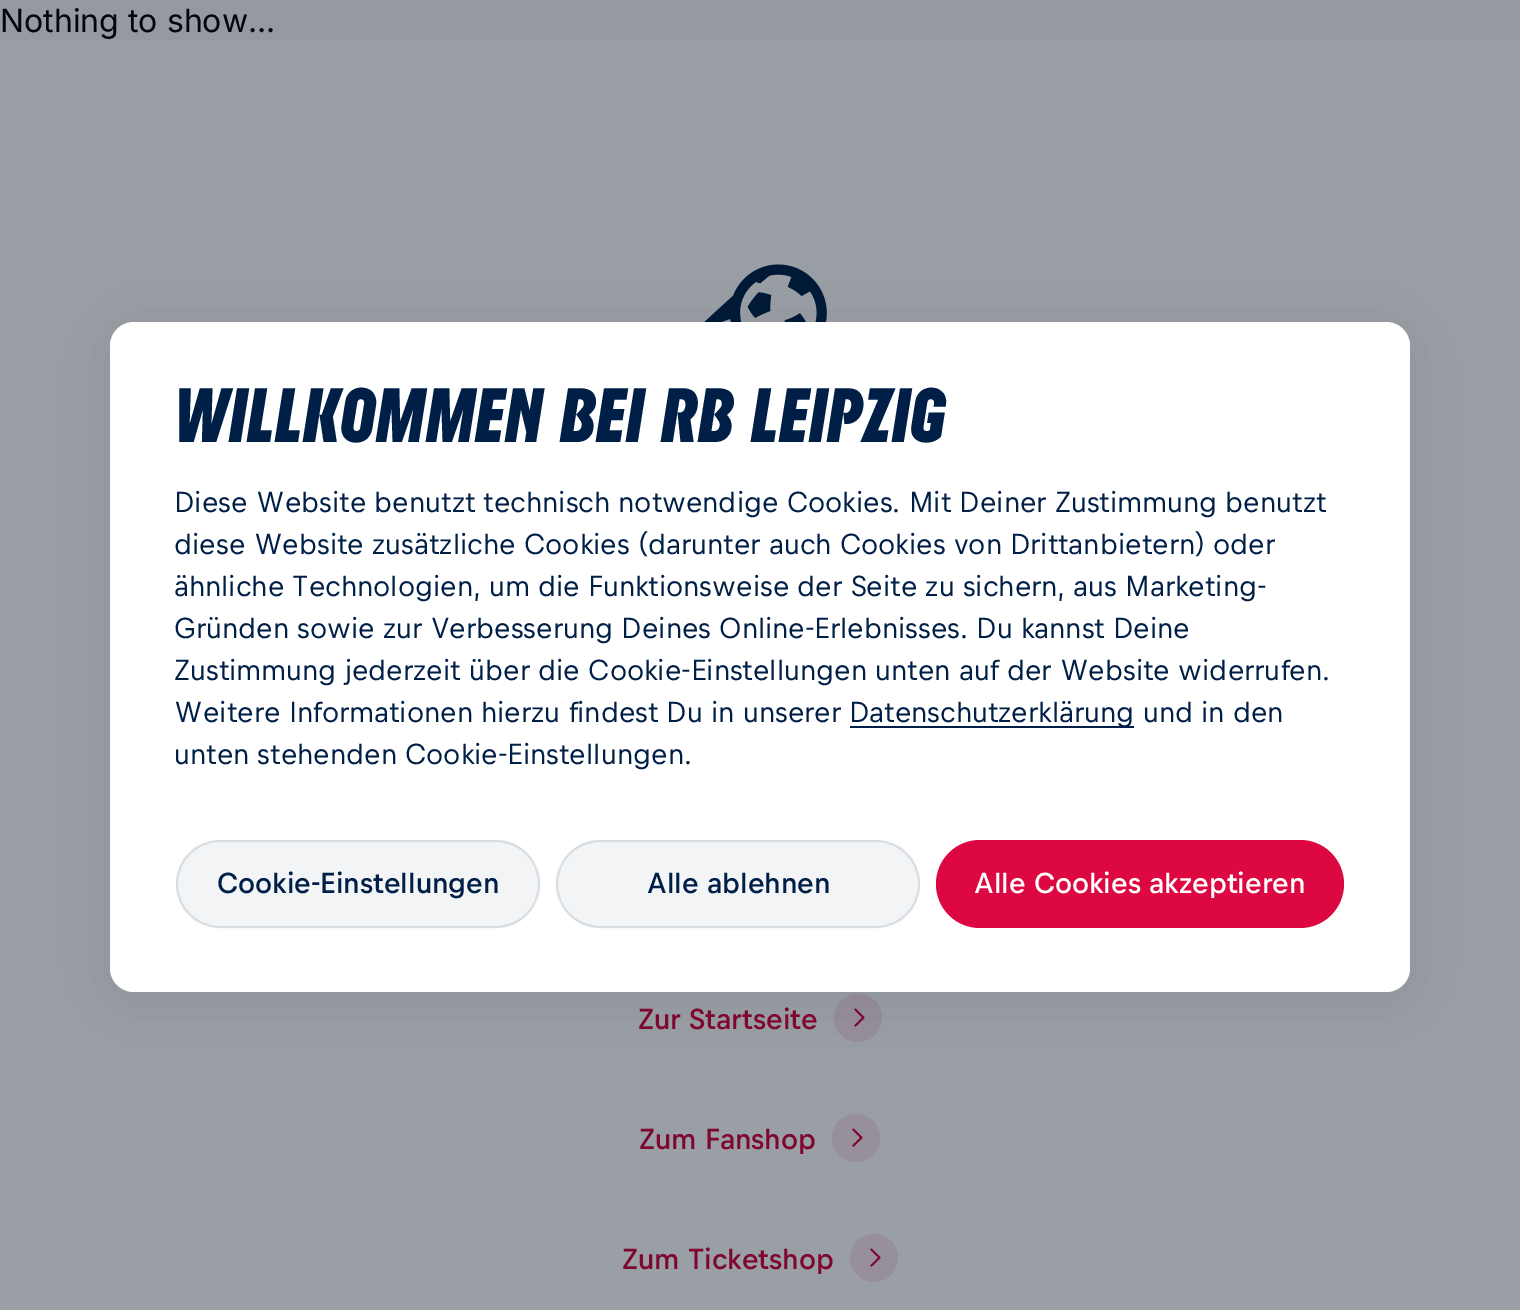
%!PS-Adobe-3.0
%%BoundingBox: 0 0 1520 1310
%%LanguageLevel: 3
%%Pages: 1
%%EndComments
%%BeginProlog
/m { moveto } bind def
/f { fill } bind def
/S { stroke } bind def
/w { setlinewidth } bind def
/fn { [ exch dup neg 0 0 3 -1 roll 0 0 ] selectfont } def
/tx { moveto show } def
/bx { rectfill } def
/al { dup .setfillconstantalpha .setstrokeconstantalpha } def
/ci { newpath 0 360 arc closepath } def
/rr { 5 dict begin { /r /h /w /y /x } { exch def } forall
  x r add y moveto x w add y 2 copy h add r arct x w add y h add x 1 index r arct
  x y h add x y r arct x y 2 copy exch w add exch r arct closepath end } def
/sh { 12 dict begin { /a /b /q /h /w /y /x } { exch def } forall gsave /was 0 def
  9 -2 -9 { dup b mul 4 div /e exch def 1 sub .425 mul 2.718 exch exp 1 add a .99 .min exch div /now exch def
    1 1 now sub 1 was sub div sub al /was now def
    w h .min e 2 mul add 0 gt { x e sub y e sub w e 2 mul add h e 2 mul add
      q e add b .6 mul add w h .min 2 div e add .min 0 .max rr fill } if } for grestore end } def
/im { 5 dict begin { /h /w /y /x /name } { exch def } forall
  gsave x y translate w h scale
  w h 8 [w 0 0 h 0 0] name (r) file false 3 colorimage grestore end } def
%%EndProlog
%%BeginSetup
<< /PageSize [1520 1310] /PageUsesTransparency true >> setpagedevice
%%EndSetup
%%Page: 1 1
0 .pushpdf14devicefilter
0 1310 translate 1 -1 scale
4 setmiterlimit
0.58 0.604 0.627 setrgbcolor
0 0 1520 1310 bx
/Inter-Regular 32 fn
0 0.024 0.047 setrgbcolor
(Nothing to show...) 0 32 tx
0.6 0.624 0.647 setrgbcolor
0 40 1520 1270 bx
(image0.raw) 704 264 123 58 im
0.592 0.565 0.604 setrgbcolor
858 1018 24 ci f
(image1.raw) 854 1008 11 19 im
0 setgray
110 330 1300 670 24 28 0.08 sh
1 setgray
110 322 1300 670 24 rr f
/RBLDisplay-BlackItalic 80 fn
0 0.122 0.278 setrgbcolor
174 442 m 0.8 0 (WILLKOMMEN BEI RB LEIPZIG) ashow
/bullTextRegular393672-Regular 30 fn
(Diese Website benutzt technisch notwendige Cookies. Mit Deiner Zustimmung benutzt) 174 512 tx
(diese Website zusätzliche Cookies \(darunter auch Cookies von Drittanbietern\) oder) 174 554 tx
(ähnliche Technologien, um die Funktionsweise der Seite zu sichern, aus Marketing-) 174 596 tx
(Gründen sowie zur Verbesserung Deines Online-Erlebnisses. Du kannst Deine) 174 638 tx
(Zustimmung jederzeit über die Cookie-Einstellungen unten auf der Website widerrufen.) 174 680 tx
(Weitere Informationen hierzu findest Du in unserer) 174 722 tx
850 726 284 2 bx
(Datenschutzerklärung und in den) 849 722 tx
(unten stehenden Cookie-Einstellungen.) 174 764 tx
0.949 0.957 0.965 setrgbcolor
176 840 364 88 44 rr f
0.1 al
0 0.122 0.278 setrgbcolor
2 w
177 841 362 86 43 rr S
/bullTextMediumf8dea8-Medium 30 fn
1 al
(Cookie-Einstellungen) 217 893 tx
0.949 0.957 0.965 setrgbcolor
556 840 364 88 44 rr f
0.1 al
0 0.122 0.278 setrgbcolor
557 841 362 86 43 rr S
1 al
(Alle ablehnen) 647 893 tx
0.867 0.027 0.255 setrgbcolor
936 840 408 88 44 rr f
1 setgray
(Alle Cookies akzeptieren) 974 893 tx
0.494 0.024 0.188 setrgbcolor
(Zur Startseite) 638 1029 tx
(Zum Fanshop) 639 1149 tx
0.592 0.565 0.604 setrgbcolor
856 1138 24 ci f
(image1.raw) 852 1128 11 19 im
0.494 0.024 0.188 setrgbcolor
(Zum Ticketshop) 622 1269 tx
0.592 0.565 0.604 setrgbcolor
874 1258 24 ci f
(image1.raw) 870 1248 11 19 im
.poppdf14devicefilter showpage
%%EOF
